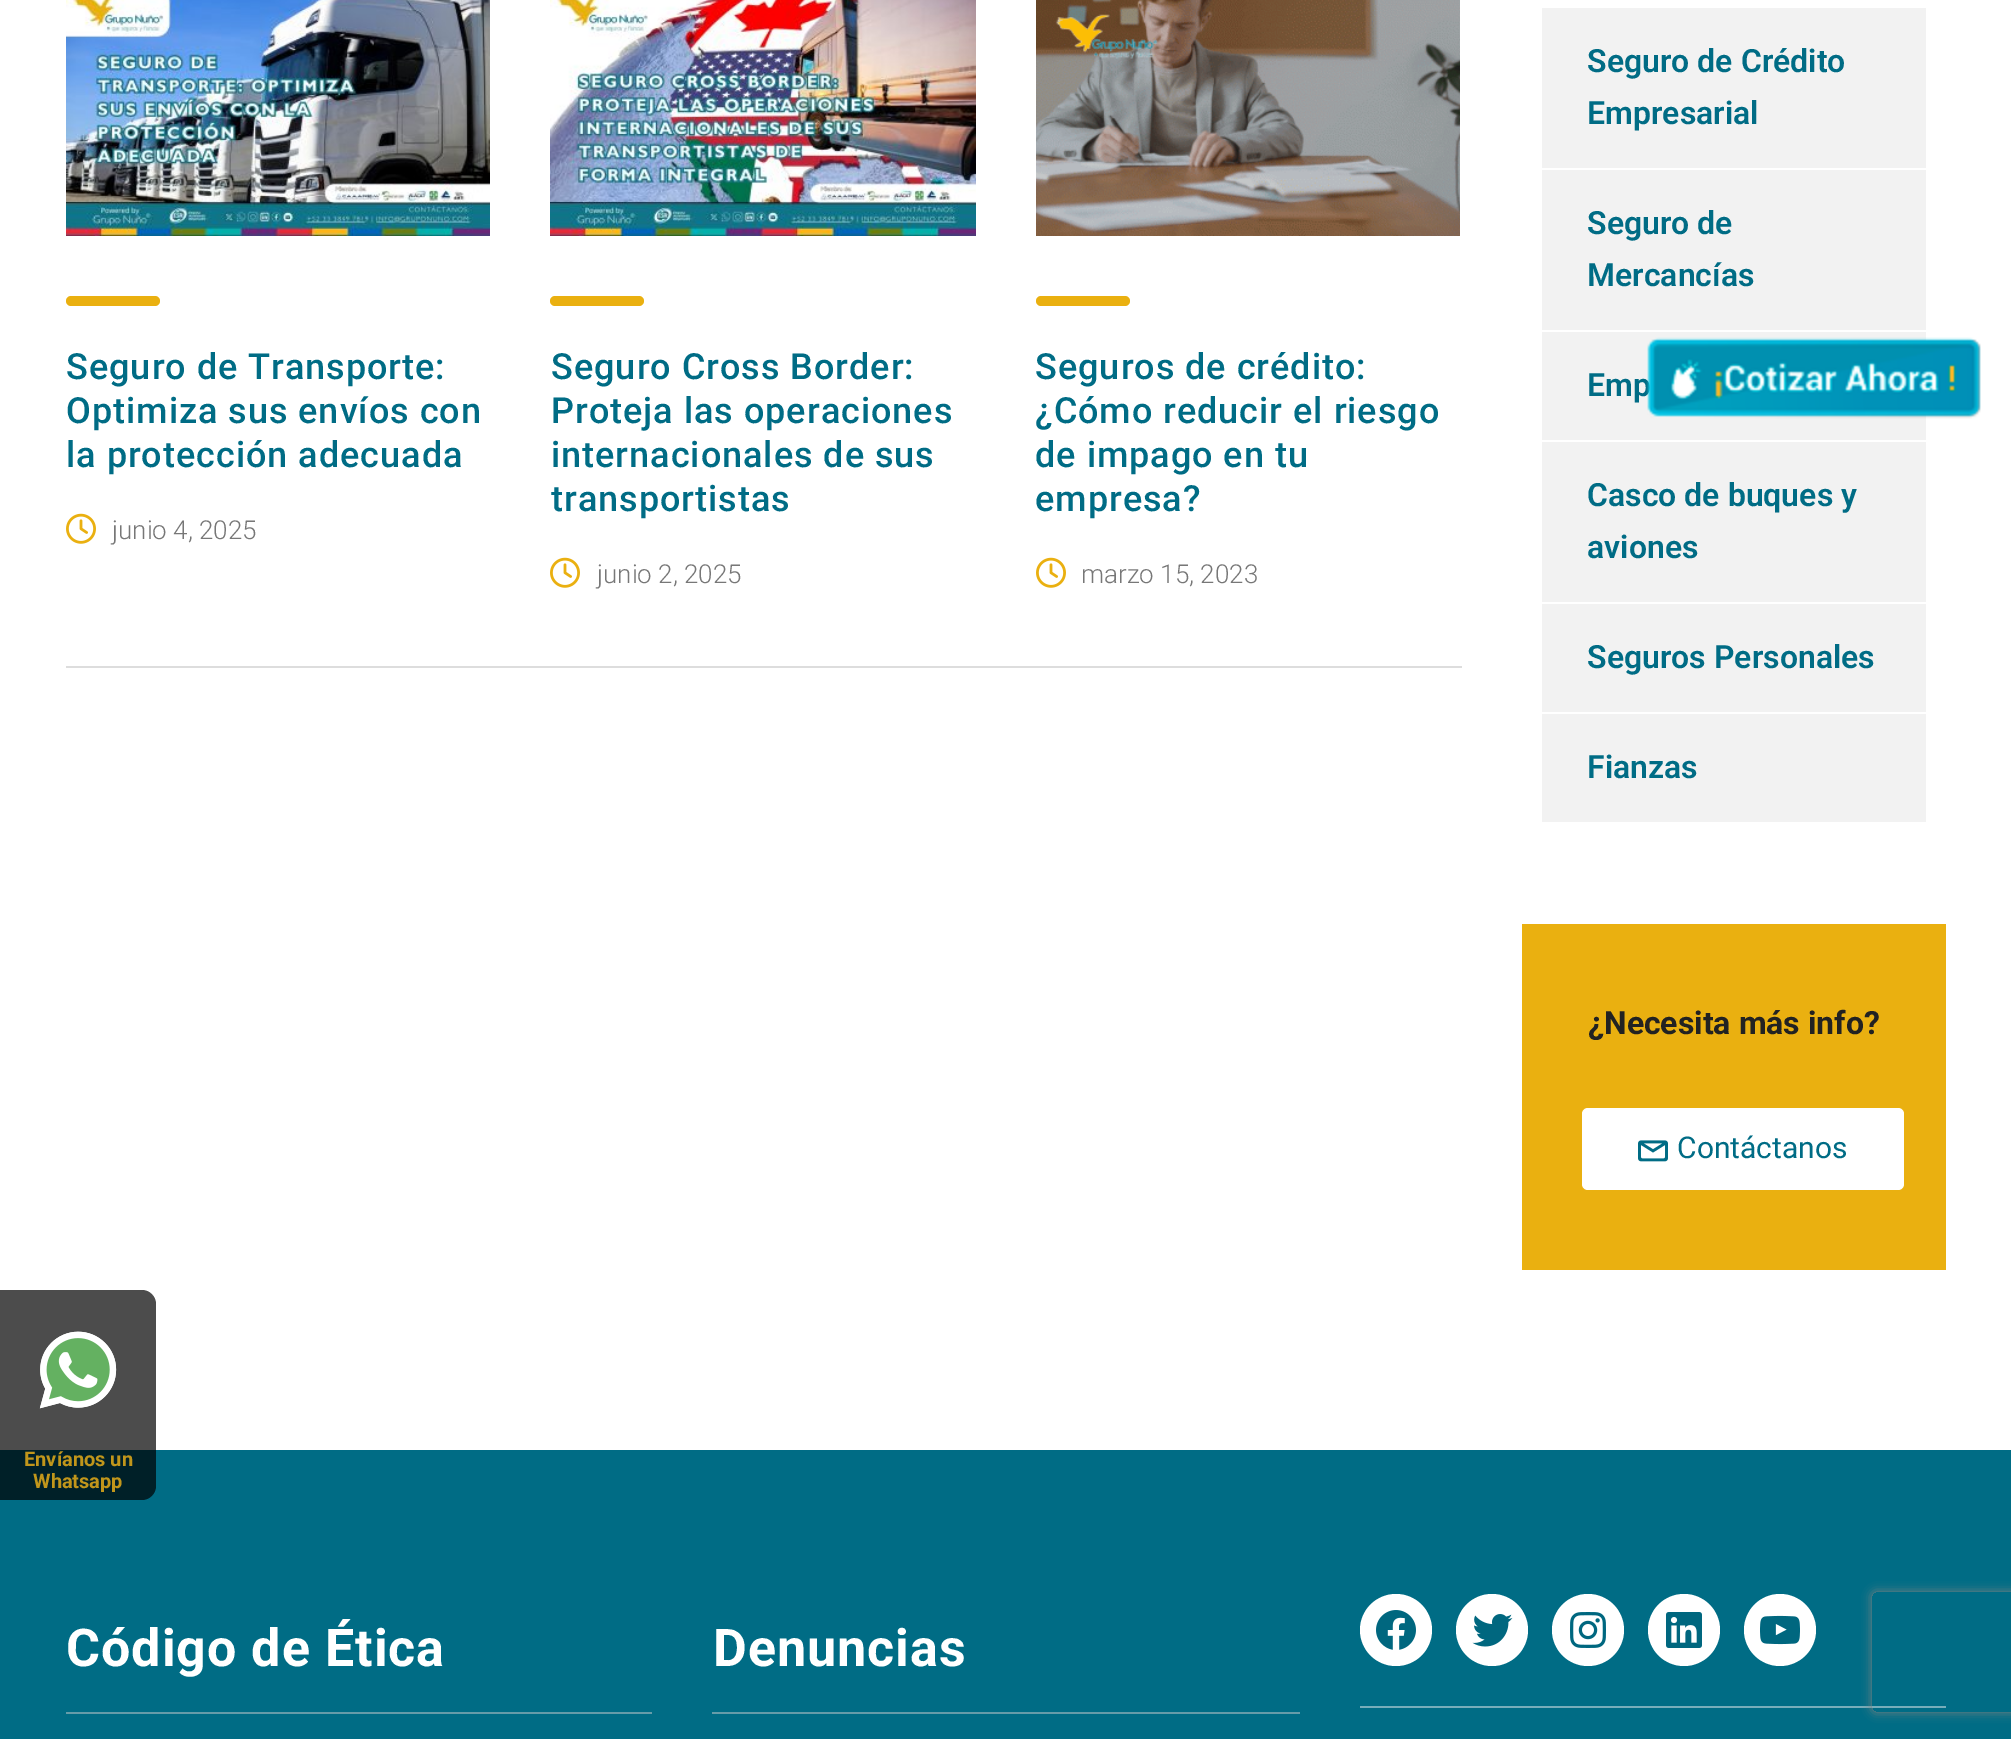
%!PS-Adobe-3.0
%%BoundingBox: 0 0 2011 1739
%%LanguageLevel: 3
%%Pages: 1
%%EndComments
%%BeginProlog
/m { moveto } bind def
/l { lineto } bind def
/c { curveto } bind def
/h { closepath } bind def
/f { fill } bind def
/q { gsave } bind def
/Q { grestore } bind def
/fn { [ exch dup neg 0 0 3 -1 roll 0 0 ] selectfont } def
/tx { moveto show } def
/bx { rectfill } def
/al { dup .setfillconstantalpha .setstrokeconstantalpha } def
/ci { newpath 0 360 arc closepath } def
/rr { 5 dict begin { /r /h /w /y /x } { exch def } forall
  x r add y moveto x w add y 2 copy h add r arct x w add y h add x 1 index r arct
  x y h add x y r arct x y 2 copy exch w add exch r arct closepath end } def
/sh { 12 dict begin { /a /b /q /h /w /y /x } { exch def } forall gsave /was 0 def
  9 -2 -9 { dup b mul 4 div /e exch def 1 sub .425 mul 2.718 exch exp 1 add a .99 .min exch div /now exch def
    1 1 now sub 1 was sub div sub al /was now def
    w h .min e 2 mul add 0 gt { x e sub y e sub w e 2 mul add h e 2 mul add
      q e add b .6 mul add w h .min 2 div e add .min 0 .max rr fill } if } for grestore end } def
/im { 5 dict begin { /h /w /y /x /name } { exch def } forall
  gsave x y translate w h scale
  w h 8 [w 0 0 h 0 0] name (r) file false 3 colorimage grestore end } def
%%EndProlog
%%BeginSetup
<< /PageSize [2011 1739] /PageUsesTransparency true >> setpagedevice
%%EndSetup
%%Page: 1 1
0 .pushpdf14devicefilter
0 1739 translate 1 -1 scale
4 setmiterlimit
1 setgray
0 0 2011 1739 bx
(image0.raw) 66 0 424 236 im
0.918 0.69 0.063 setrgbcolor
66 296 94 10 5 rr f
/Roboto-Medium 36 fn
0 0.424 0.522 setrgbcolor
66 379 m 1 0 (Seguro de Transporte:) ashow
66 423 m 1 0 (Optimiza sus envíos con) ashow
66 467 m 1 0 (la protección adecuada) ashow
(image1.raw) 66 513 30 31 im
/Roboto-Light 26 fn
0.467 setgray
(junio 4, 2025) 112 539 tx
(image2.raw) 550 0 426 236 im
0.918 0.69 0.063 setrgbcolor
550 296 94 10 5 rr f
/Roboto-Medium 36 fn
0 0.424 0.522 setrgbcolor
551 379 m 1 0 (Seguro Cross Border:) ashow
551 423 m 1 0 (Proteja las operaciones) ashow
551 467 m 1 0 (internacionales de sus) ashow
551 511 m 1 0 (transportistas) ashow
(image1.raw) 550 557 30 31 im
/Roboto-Light 26 fn
0.467 setgray
(junio 2, 2025) 597 583 tx
(image3.raw) 1036 0 424 236 im
0.918 0.69 0.063 setrgbcolor
1036 296 94 10 5 rr f
/Roboto-Medium 36 fn
0 0.424 0.522 setrgbcolor
1035 379 m 1 0 (Seguros de crédito:) ashow
1035 423 m 1 0 (¿Cómo reducir el riesgo) ashow
1035 467 m 1 0 (de impago en tu) ashow
1035 511 m 1 0 (empresa?) ashow
(image1.raw) 1036 557 30 31 im
/Roboto-Light 26 fn
0.467 setgray
(marzo 15, 2023) 1081 583 tx
0.867 setgray
66 666 1396 2 bx
0.949 setgray
1542 8 384 160 bx
/Roboto-SemiBold 32 fn
0 0.424 0.522 setrgbcolor
(Seguro de Crédito) 1587 72 tx
(Empresarial) 1587 124 tx
0.949 setgray
1542 170 384 160 bx
0 0.424 0.522 setrgbcolor
(Seguro de) 1587 234 tx
(Mercancías) 1587 286 tx
0.949 setgray
1542 332 384 108 bx
0 0.424 0.522 setrgbcolor
(Emp) 1587 396 tx
0.949 setgray
1542 442 384 160 bx
0 0.424 0.522 setrgbcolor
(Casco de buques y) 1587 506 tx
(aviones) 1587 558 tx
0.949 setgray
1542 604 384 108 bx
0 0.424 0.522 setrgbcolor
(Seguros Personales) 1587 668 tx
0.949 setgray
1542 714 384 108 bx
0 0.424 0.522 setrgbcolor
(Fianzas) 1587 778 tx
0.918 0.69 0.063 setrgbcolor
1522 924 424 346 bx
/Roboto-Bold 32 fn
0.133 setgray
(¿Necesita más info?) 1588 1034 tx
1 setgray
1582 1108 322 82 6 rr f
(image4.raw) 1638 1140 30 22 im
/Roboto-Regular 30 fn
0 0.424 0.522 setrgbcolor
(Contáctanos) 1677 1158 tx
0 1450 2011 289 bx
0.4 0.612 0.663 setrgbcolor
66 1712 586 2 bx
/Roboto-Bold 52 fn
1 setgray
66 1666 m 1 0 (Código de Ética) ashow
0.4 0.612 0.663 setrgbcolor
712 1712 588 2 bx
1 setgray
713 1666 m 1 0 (Denuncias) ashow
1396 1630 36 ci f
(image5.raw) 1376 1610 40 40 im
1492 1630 36 ci f
(image6.raw) 1472 1614 41 33 im
1588 1630 36 ci f
(image7.raw) 1570 1612 36 36 im
1684 1630 36 ci f
(image8.raw) 1666 1612 36 36 im
1780 1630 36 ci f
(image9.raw) 1760 1615 40 30 im
0.467 0.678 0.729 setrgbcolor
1360 1706 586 2 bx
(image10.raw) 1646 337 335 82 im
0.7 al
0 setgray
0 1290 m 142 1290 l 149.5 1290 156 1296.5 156 1304 c 156 1486 l 156 1493.5 149.5 1500 142 1500 c 0 1500 l h f
1 al
(image11.raw) 39 1331 78 78 im
/Roboto-Bold 20 fn
0.757 0.588 0.106 setrgbcolor
(Envíanos un) 24 1466 tx
(Whatsapp) 33 1488 tx
q
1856 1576 m 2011 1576 l 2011 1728 l 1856 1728 l h 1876 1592 m 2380 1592 l 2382 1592 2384 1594 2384 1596 c 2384 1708 l 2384 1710 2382 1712 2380 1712 c 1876 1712 l 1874 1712 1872 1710 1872 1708 c 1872 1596 l 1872 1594 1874 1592 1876 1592 c h eoclip newpath
0.502 setgray
1872 1592 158 120 4 5 1 sh
Q
.poppdf14devicefilter showpage
%%EOF
